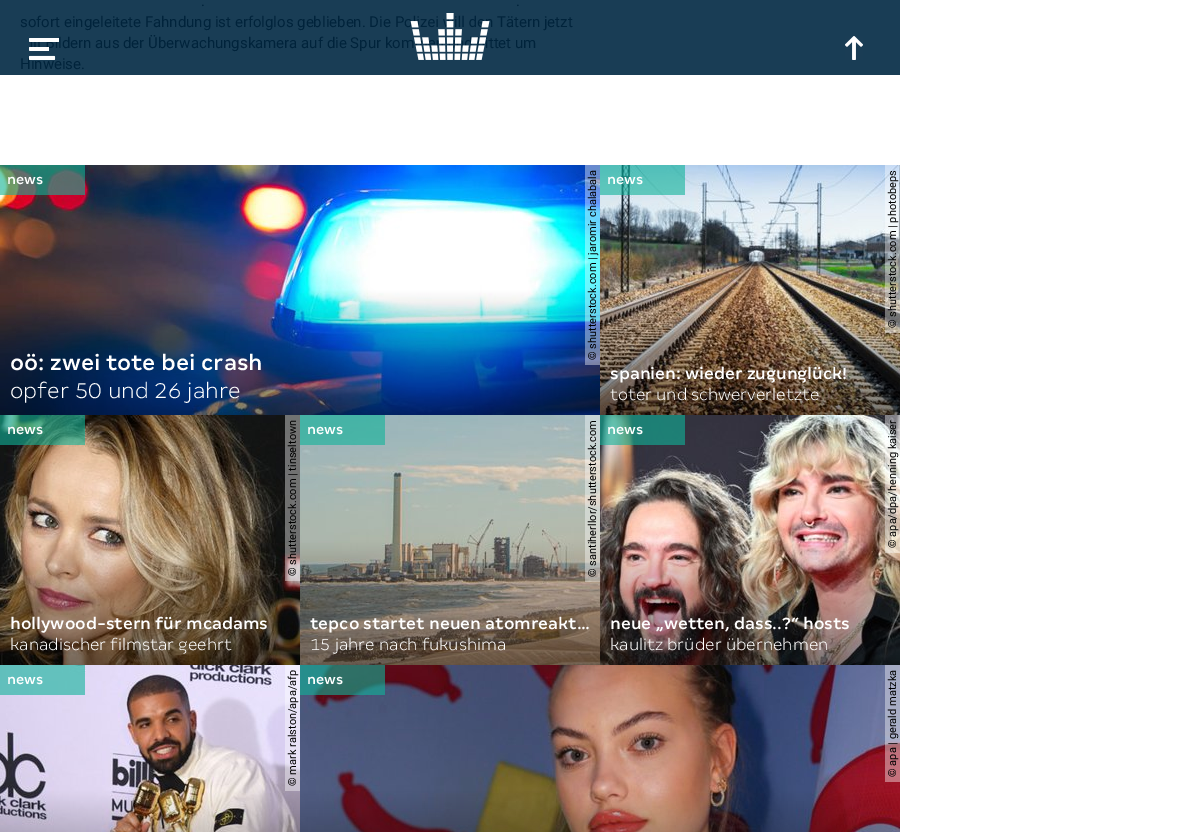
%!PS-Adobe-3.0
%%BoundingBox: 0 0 1187 832
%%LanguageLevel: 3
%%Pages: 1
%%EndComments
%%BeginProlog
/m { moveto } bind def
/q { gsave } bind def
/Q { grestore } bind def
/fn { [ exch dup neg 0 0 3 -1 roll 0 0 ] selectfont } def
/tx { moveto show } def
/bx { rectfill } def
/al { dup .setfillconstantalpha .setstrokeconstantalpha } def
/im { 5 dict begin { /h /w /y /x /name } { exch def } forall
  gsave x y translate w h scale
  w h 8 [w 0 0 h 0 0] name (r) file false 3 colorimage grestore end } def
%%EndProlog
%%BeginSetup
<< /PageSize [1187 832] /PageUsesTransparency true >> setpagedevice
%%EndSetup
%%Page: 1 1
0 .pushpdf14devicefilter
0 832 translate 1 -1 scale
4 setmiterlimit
1 setgray
0 0 1187 832 bx
0.098 0.239 0.333 setrgbcolor
0 0 900 75 bx
/Roboto-Regular 15 fn
0 0.137 0.231 setrgbcolor
(.) 201 6 tx
(.) 516 6 tx
(sofort eingeleitete Fahndung ist erfolglos geblieben. Die Polizei will den Tätern jetzt) 20 27 tx
(ldern aus der Überwachungskamera auf die Spur kom) 58 48 tx
(ittet um) 485 48 tx
(Hinweise.) 20 69 tx
(image0.raw) 0 165 600 250 im
0.6 al
0.059 0.702 0.6 setrgbcolor
0 165 85 30 bx
/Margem-Medium 15 fn
1 al
1 setgray
(news) 7 184 tx
0.4 al
585 165 15 200 bx
/Roboto-Regular 11 fn
1 al
0 setgray
q 596 360 translate -90 rotate 0 0 m (© shutterstock.com | jaromir chalabala) show Q
/Margem-Medium 24 fn
1 setgray
(oö: zwei tote bei crash) 10 370 tx
/Margem-Light 24 fn
(opfer 50 und 26 jahre) 10 398 tx
(image1.raw) 600 165 300 250 im
0.6 al
0.059 0.702 0.6 setrgbcolor
600 165 85 30 bx
/Margem-Medium 15 fn
1 al
1 setgray
(news) 607 184 tx
0.4 al
885 165 15 168 bx
/Roboto-Regular 11 fn
1 al
0 setgray
q 896 328 translate -90 rotate 0 0 m (© shutterstock.com | photobeps) show Q
/Margem-Medium 18 fn
1 setgray
(spanien: wieder zugunglück!) 610 379 tx
/Margem-Light 18 fn
(toter und schwerverletzte) 610 400 tx
(image2.raw) 0 415 300 250 im
0.6 al
0.059 0.702 0.6 setrgbcolor
0 415 85 30 bx
/Margem-Medium 15 fn
1 al
1 setgray
(news) 7 434 tx
0.4 al
285 415 15 166 bx
/Roboto-Regular 11 fn
1 al
0 setgray
q 296 576 translate -90 rotate 0 0 m (© shutterstock.com | tinseltown) show Q
/Margem-Medium 18 fn
1 setgray
(hollywood-stern für mcadams) 10 629 tx
/Margem-Light 18 fn
(kanadischer filmstar geehrt) 10 650 tx
(image3.raw) 300 415 300 250 im
0.6 al
0.059 0.702 0.6 setrgbcolor
300 415 85 30 bx
/Margem-Medium 15 fn
1 al
1 setgray
(news) 307 434 tx
0.4 al
585 415 15 167 bx
/Roboto-Regular 11 fn
1 al
0 setgray
q 596 577 translate -90 rotate 0 0 m (© santiherllor/shutterstock.com) show Q
/Margem-Medium 18 fn
1 setgray
(tepco startet neuen atomreakt…) 310 629 tx
/Margem-Light 18 fn
(15 jahre nach fukushima) 310 650 tx
(image4.raw) 600 415 300 250 im
0.6 al
0.059 0.702 0.6 setrgbcolor
600 415 85 30 bx
/Margem-Medium 15 fn
1 al
1 setgray
(news) 607 434 tx
0.4 al
885 415 15 138 bx
/Roboto-Regular 11 fn
1 al
0 setgray
q 896 548 translate -90 rotate 0 0 m (© apa/dpa/henning kaiser) show Q
/Margem-Medium 18 fn
1 setgray
(neue „wetten, dass..?“ hosts) 610 629 tx
/Margem-Light 18 fn
(kaulitz brüder übernehmen) 610 650 tx
(image5.raw) 0 665 300 167 im
0.6 al
0.059 0.702 0.6 setrgbcolor
0 665 85 30 bx
/Margem-Medium 15 fn
1 al
1 setgray
(news) 7 684 tx
0.4 al
285 665 15 126 bx
/Roboto-Regular 11 fn
1 al
0 setgray
q 296 786 translate -90 rotate 0 0 m (© mark ralston/apa/afp) show Q
(image6.raw) 300 665 600 167 im
0.6 al
0.059 0.702 0.6 setrgbcolor
300 665 85 30 bx
/Margem-Medium 15 fn
1 al
1 setgray
(news) 307 684 tx
0.4 al
885 665 15 117 bx
/Roboto-Regular 11 fn
1 al
0 setgray
q 896 777 translate -90 rotate 0 0 m (© apa | gerald matzka) show Q
(image7.raw) 29 38 30 22 im
(image8.raw) 410 13 80 47 im
(image9.raw) 845 36 18 24 im
.poppdf14devicefilter showpage
%%EOF
